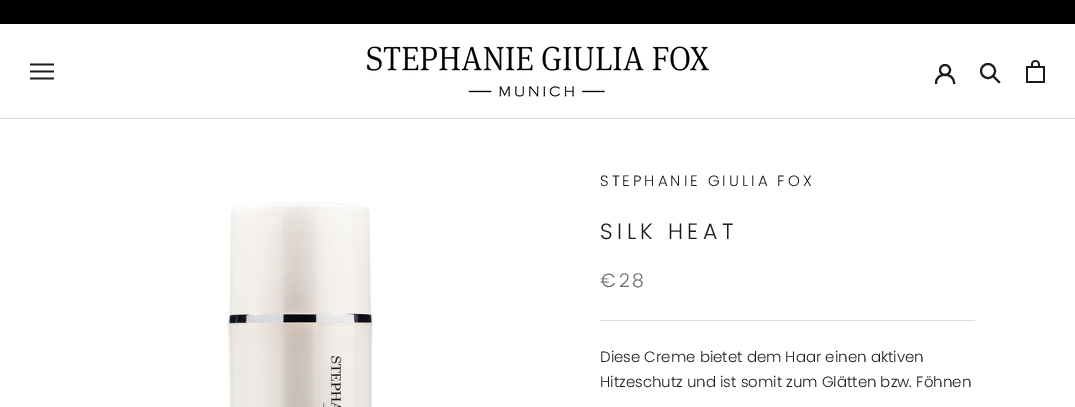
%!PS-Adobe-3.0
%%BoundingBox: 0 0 1075 407
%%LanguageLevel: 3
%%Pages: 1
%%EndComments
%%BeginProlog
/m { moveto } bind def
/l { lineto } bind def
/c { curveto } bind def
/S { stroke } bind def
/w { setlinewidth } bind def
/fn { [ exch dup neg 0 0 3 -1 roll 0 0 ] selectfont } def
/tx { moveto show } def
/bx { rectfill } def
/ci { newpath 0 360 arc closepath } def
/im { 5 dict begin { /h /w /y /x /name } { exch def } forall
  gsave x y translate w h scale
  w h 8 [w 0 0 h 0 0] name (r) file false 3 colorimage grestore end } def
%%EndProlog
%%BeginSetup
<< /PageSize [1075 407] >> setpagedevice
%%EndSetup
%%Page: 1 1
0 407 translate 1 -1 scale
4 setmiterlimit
1 setgray
0 0 1075 407 bx
0 setgray
0 0 1075 24 bx
0.867 setgray
0 118 1075 1 bx
(image0.raw) 30 63 24 17 im
(image1.raw) 366 46 343 51 im
0.11 0.106 0.106 setrgbcolor
2 w
2 setlinecap
936 83 m 936 72 954 72 954 83 c S
0 setlinecap
945 70 5 ci S
2 setlinecap
999 82 m 993.5 76.5 l S
0 setlinecap
988 71 7 ci S
(image2.raw) 1026 60 19 23 im
(image3.raw) 227 202 148 205 im
/Poppins-Light 15 fn
600 186 m 3 0 (STEPHANIE GIULIA FOX) ashow
/Poppins-Light 22 fn
600 239 m 4.5 0 (SILK HEAT) ashow
/Poppins-Light 19 fn
0.416 setgray
600 287 m 3 0 (€28) ashow
0.867 setgray
600 320 375 1 bx
/Poppins-Light 15 fn
0.11 0.106 0.106 setrgbcolor
(Diese Creme bietet dem Haar einen aktiven) 600 362 tx
(Hitzeschutz und ist somit zum Glätten bzw. Föhnen) 600 387 tx
showpage
%%EOF
